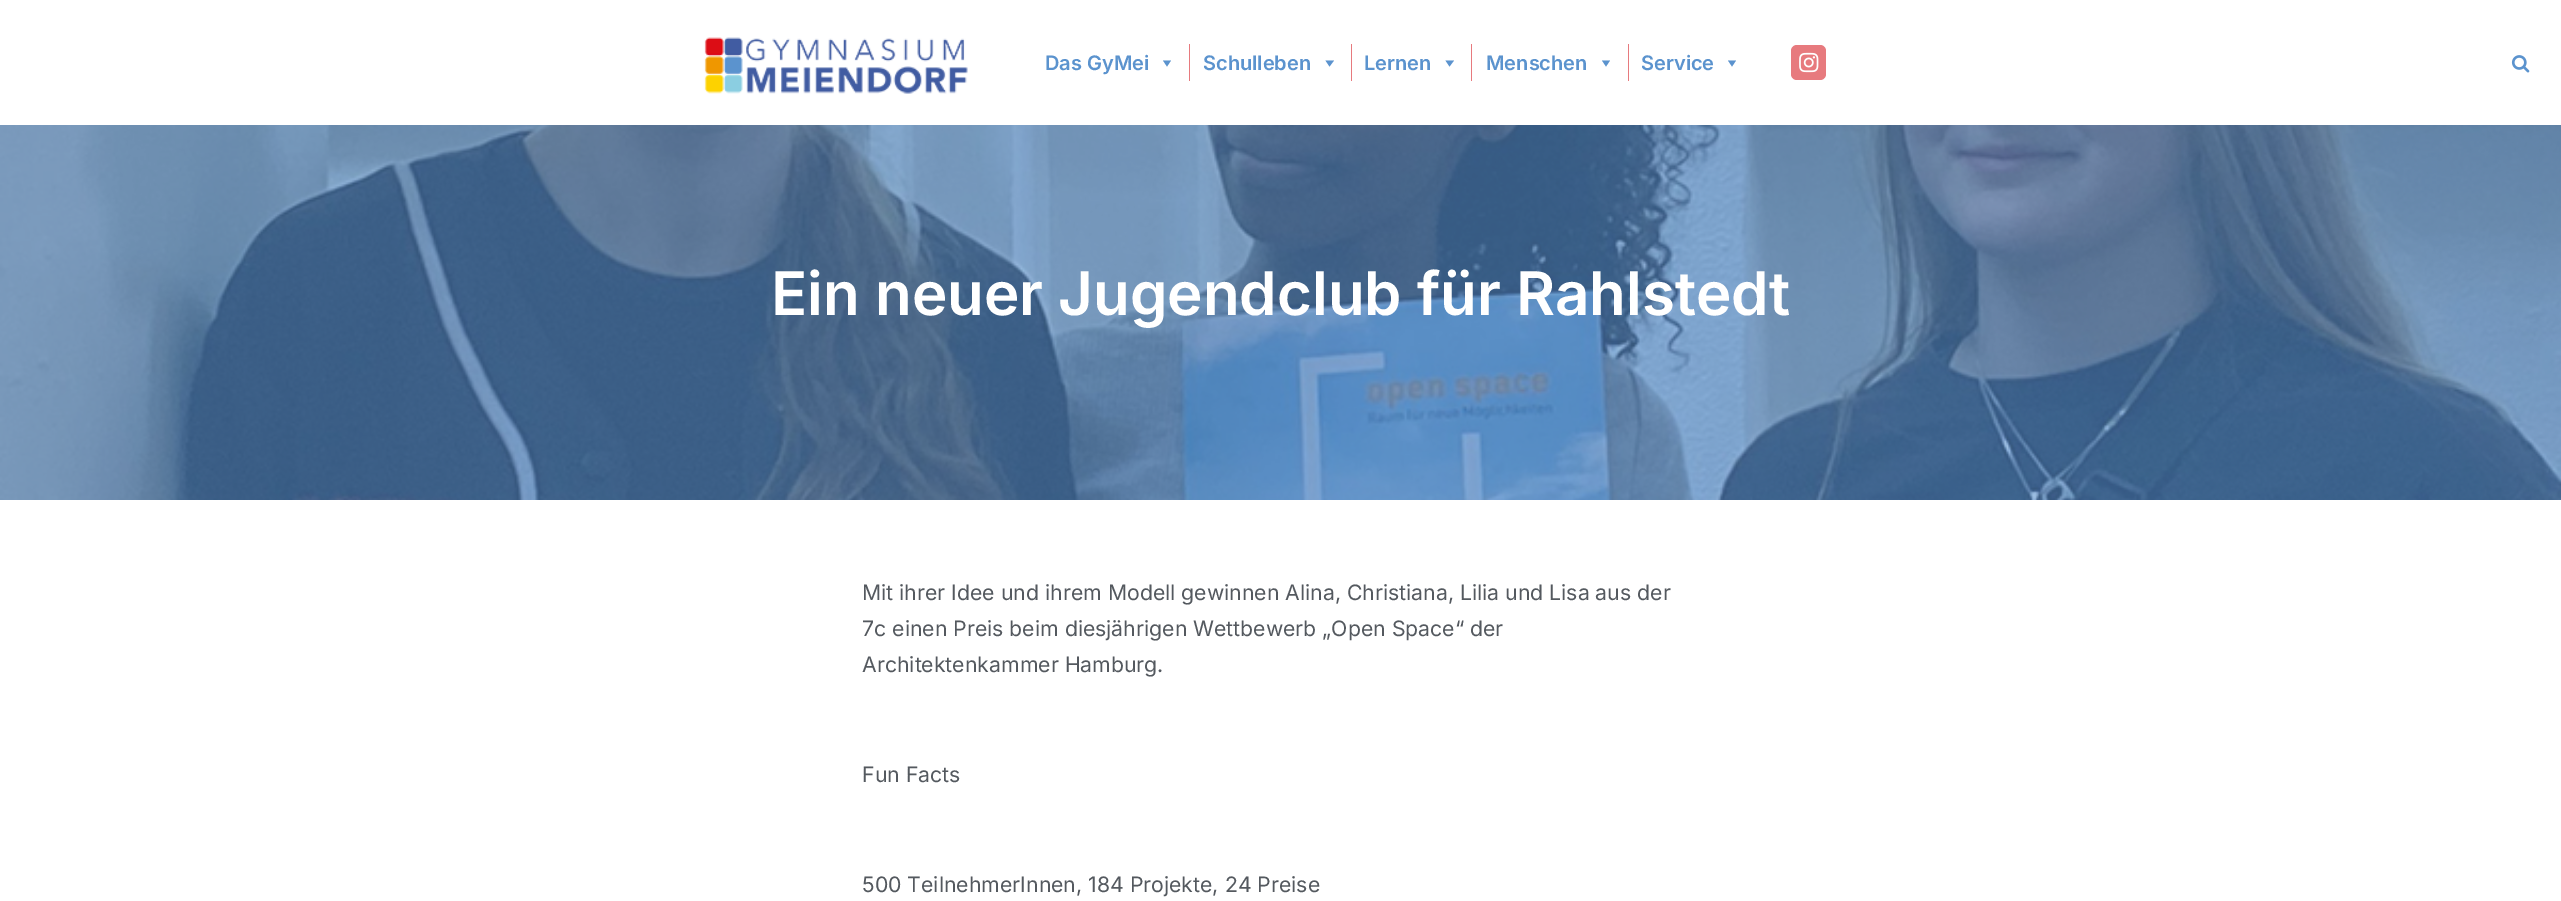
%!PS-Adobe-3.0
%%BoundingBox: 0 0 2561 901
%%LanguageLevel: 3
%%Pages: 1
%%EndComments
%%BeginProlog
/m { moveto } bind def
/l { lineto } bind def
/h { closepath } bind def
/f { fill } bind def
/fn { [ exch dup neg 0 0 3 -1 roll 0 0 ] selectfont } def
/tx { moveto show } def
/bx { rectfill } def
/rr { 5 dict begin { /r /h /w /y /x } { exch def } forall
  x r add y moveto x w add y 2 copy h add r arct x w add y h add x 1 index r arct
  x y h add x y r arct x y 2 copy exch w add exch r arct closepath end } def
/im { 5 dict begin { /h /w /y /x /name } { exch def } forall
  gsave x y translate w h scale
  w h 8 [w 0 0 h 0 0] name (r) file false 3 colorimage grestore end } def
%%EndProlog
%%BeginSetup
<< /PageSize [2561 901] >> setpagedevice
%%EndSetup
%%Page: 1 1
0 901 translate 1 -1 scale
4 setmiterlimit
1 setgray
0 0 2561 901 bx
(image0.raw) 704 37 264 57 im
/Inter-SemiBold 20 fn
0.357 0.576 0.808 setrgbcolor
(Das GyMei) 1045 70 tx
1171 60.5 m 1167 66.5 l 1163 60.5 l h f
0.906 0.478 0.494 setrgbcolor
1189 44 1 37 bx
0.357 0.576 0.808 setrgbcolor
(Schulleben) 1203 70 tx
1334 60.5 m 1329.5 66.5 l 1325.5 60.5 l h f
0.906 0.478 0.494 setrgbcolor
1351 44 1 37 bx
0.357 0.576 0.808 setrgbcolor
(Lernen) 1364 70 tx
1454 60.5 m 1449.5 66.5 l 1445.5 60.5 l h f
0.906 0.478 0.494 setrgbcolor
1471 44 1 37 bx
0.357 0.576 0.808 setrgbcolor
(Menschen) 1486 70 tx
1610 60.5 m 1606 66.5 l 1602 60.5 l h f
0.906 0.478 0.494 setrgbcolor
1628 44 1 37 bx
0.357 0.576 0.808 setrgbcolor
(Service) 1641 70 tx
1736 60.5 m 1732 66.5 l 1728 60.5 l h f
0.906 0.478 0.494 setrgbcolor
1791 45 35 35 6 rr f
(image1.raw) 1799 52 20 21 im
(image2.raw) 2511 55 19 18 im
(image3.raw) 0 125 2561 375 im
/Inter-SemiBold 60 fn
1 setgray
(Ein neuer Jugendclub für Rahlstedt) 771 315 tx
/Inter-Regular 21.25 fn
0.329 0.349 0.373 setrgbcolor
(Mit ihrer Idee und ihrem Modell gewinnen Alina, Christiana, Lilia und Lisa aus der) 862 600 tx
(7c einen Preis beim diesjährigen Wettbewerb „Open Space“ der) 862 636 tx
(Architektenkammer Hamburg.) 862 672 tx
(Fun Facts) 862 782 tx
(500 TeilnehmerInnen, 184 Projekte, 24 Preise) 862 892 tx
showpage
%%EOF
